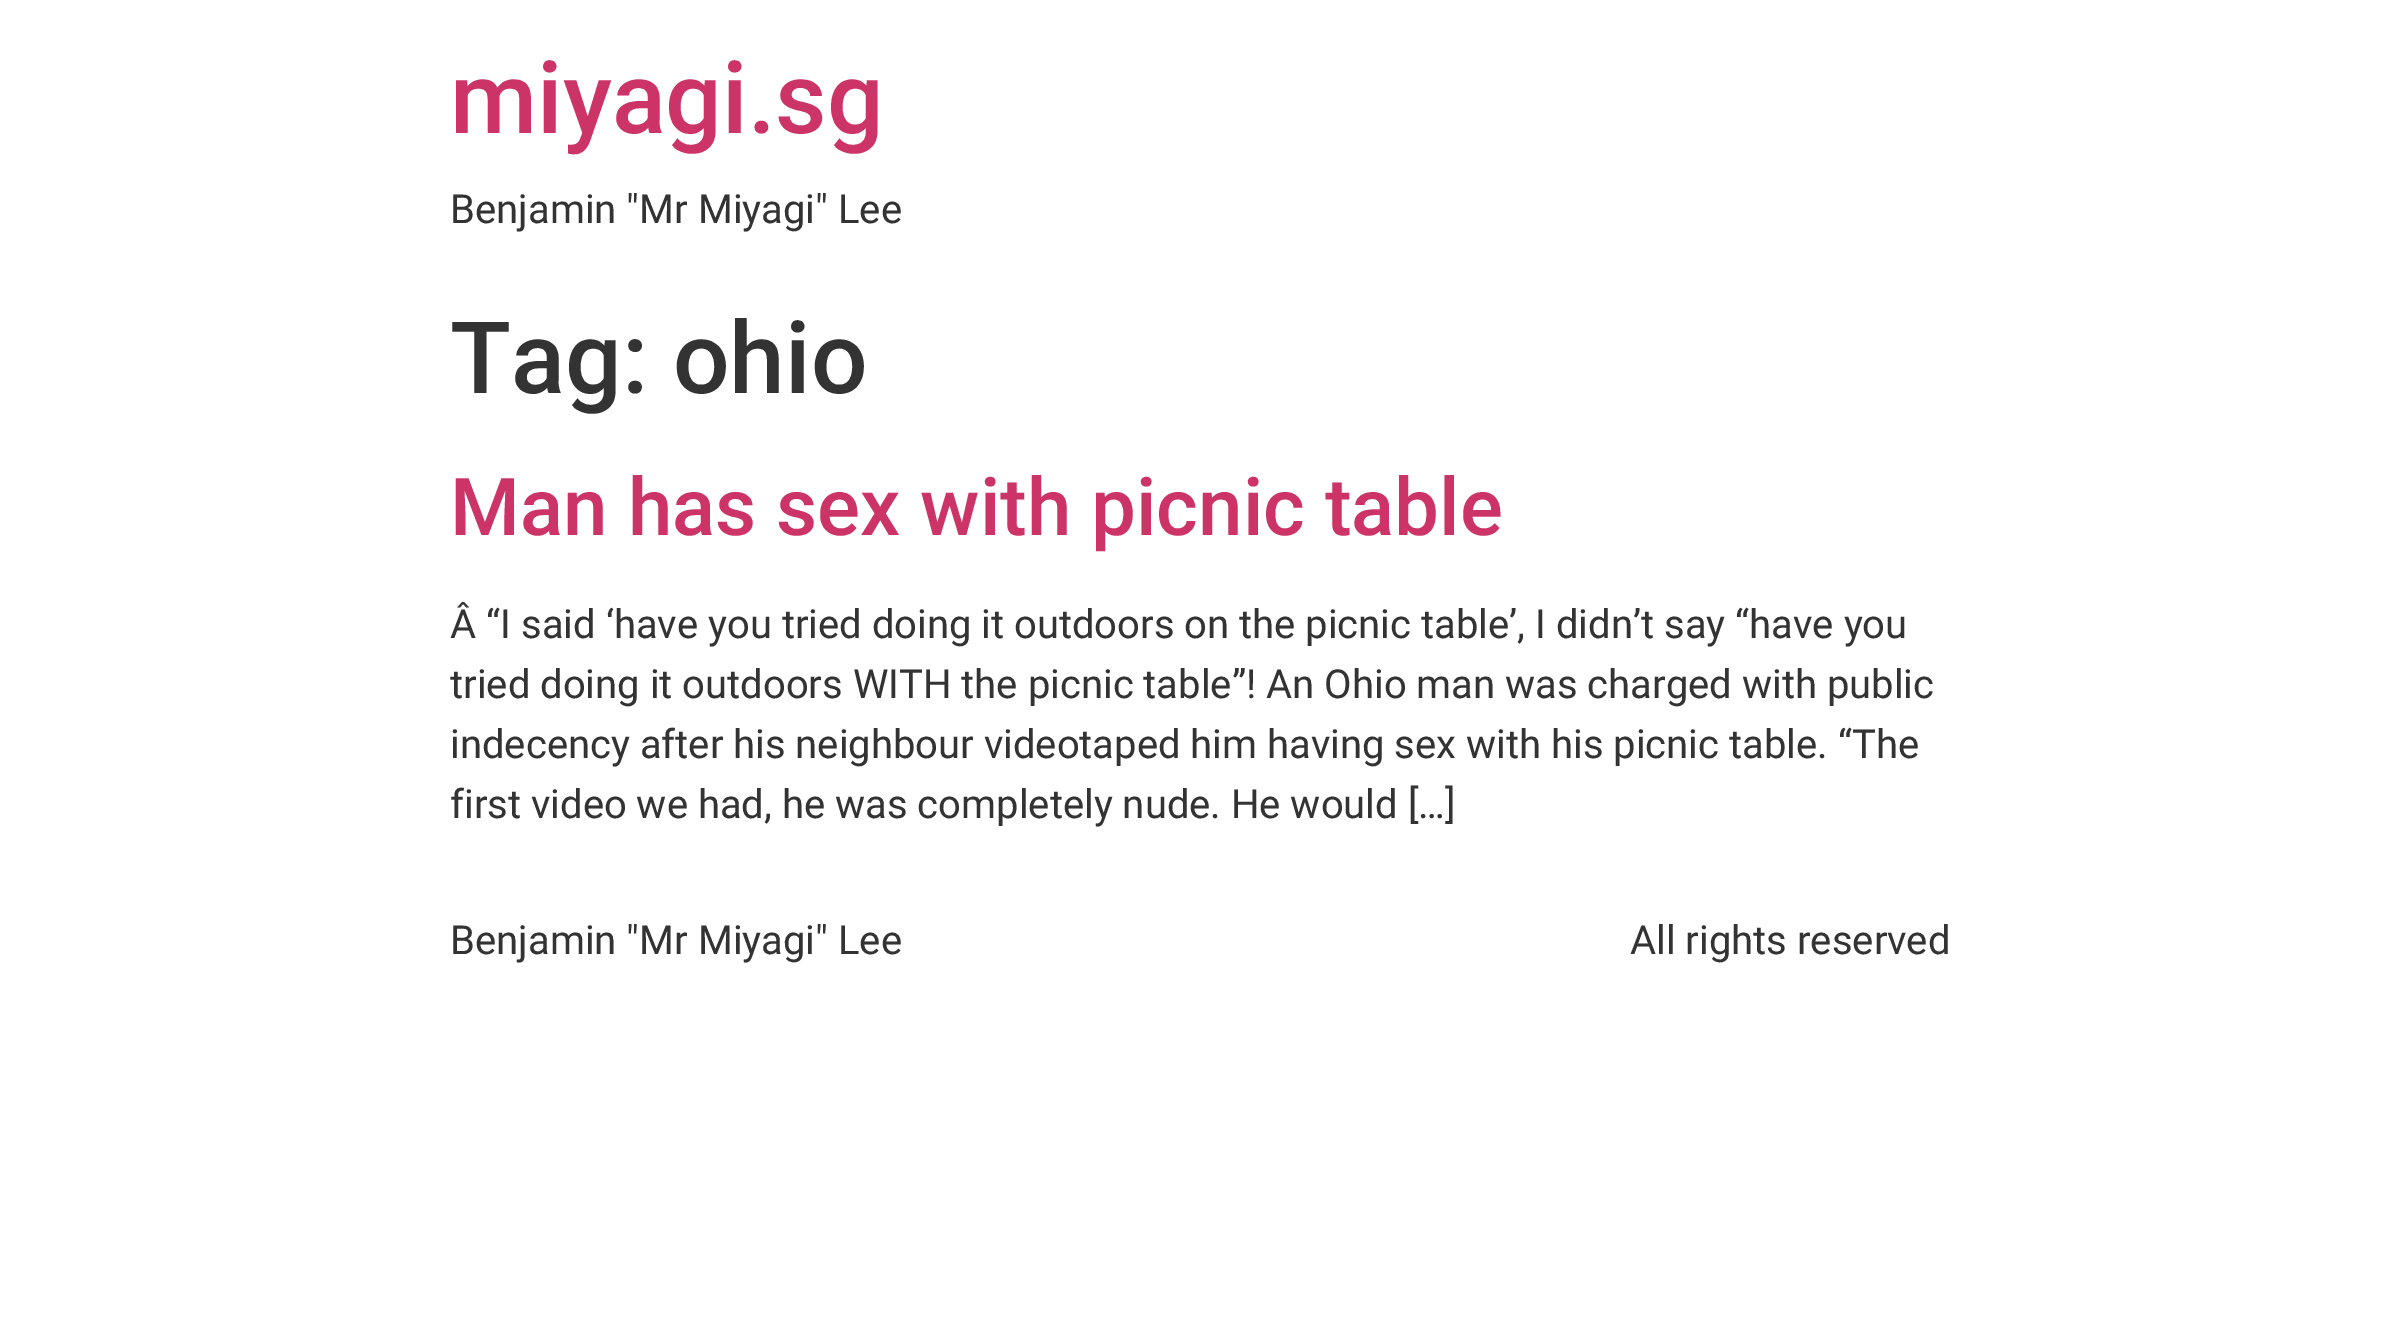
%!PS-Adobe-3.0
%%BoundingBox: 0 0 2399 1329
%%LanguageLevel: 3
%%Pages: 1
%%EndComments
%%BeginProlog
/fn { [ exch dup neg 0 0 3 -1 roll 0 0 ] selectfont } def
/tx { moveto show } def
/bx { rectfill } def
%%EndProlog
%%BeginSetup
<< /PageSize [2399 1329] >> setpagedevice
%%EndSetup
%%Page: 1 1
0 1329 translate 1 -1 scale
4 setmiterlimit
1 setgray
0 0 2399 1329 bx
/Roboto-Medium 100 fn
0.8 0.2 0.4 setrgbcolor
(miyagi.sg) 450 133 tx
/Roboto-Regular 40 fn
0.2 setgray
(Benjamin "Mr Miyagi" Lee) 450 223 tx
/Roboto-Medium 100 fn
(Tag: ohio) 450 393 tx
/Roboto-Medium 80 fn
0.8 0.2 0.4 setrgbcolor
(Man has sex with picnic table) 450 535 tx
/Roboto-Regular 40 fn
0.2 setgray
(Â “I said ‘have you tried doing it outdoors on the picnic table’, I didn’t say “have you) 450 638 tx
(tried doing it outdoors WITH the picnic table”! An Ohio man was charged with public) 450 698 tx
(indecency after his neighbour videotaped him having sex with his picnic table. “The) 450 758 tx
(first video we had, he was completely nude. He would […]) 450 818 tx
(Benjamin "Mr Miyagi" Lee) 450 954 tx
(All rights reserved) 1630 954 tx
showpage
%%EOF
